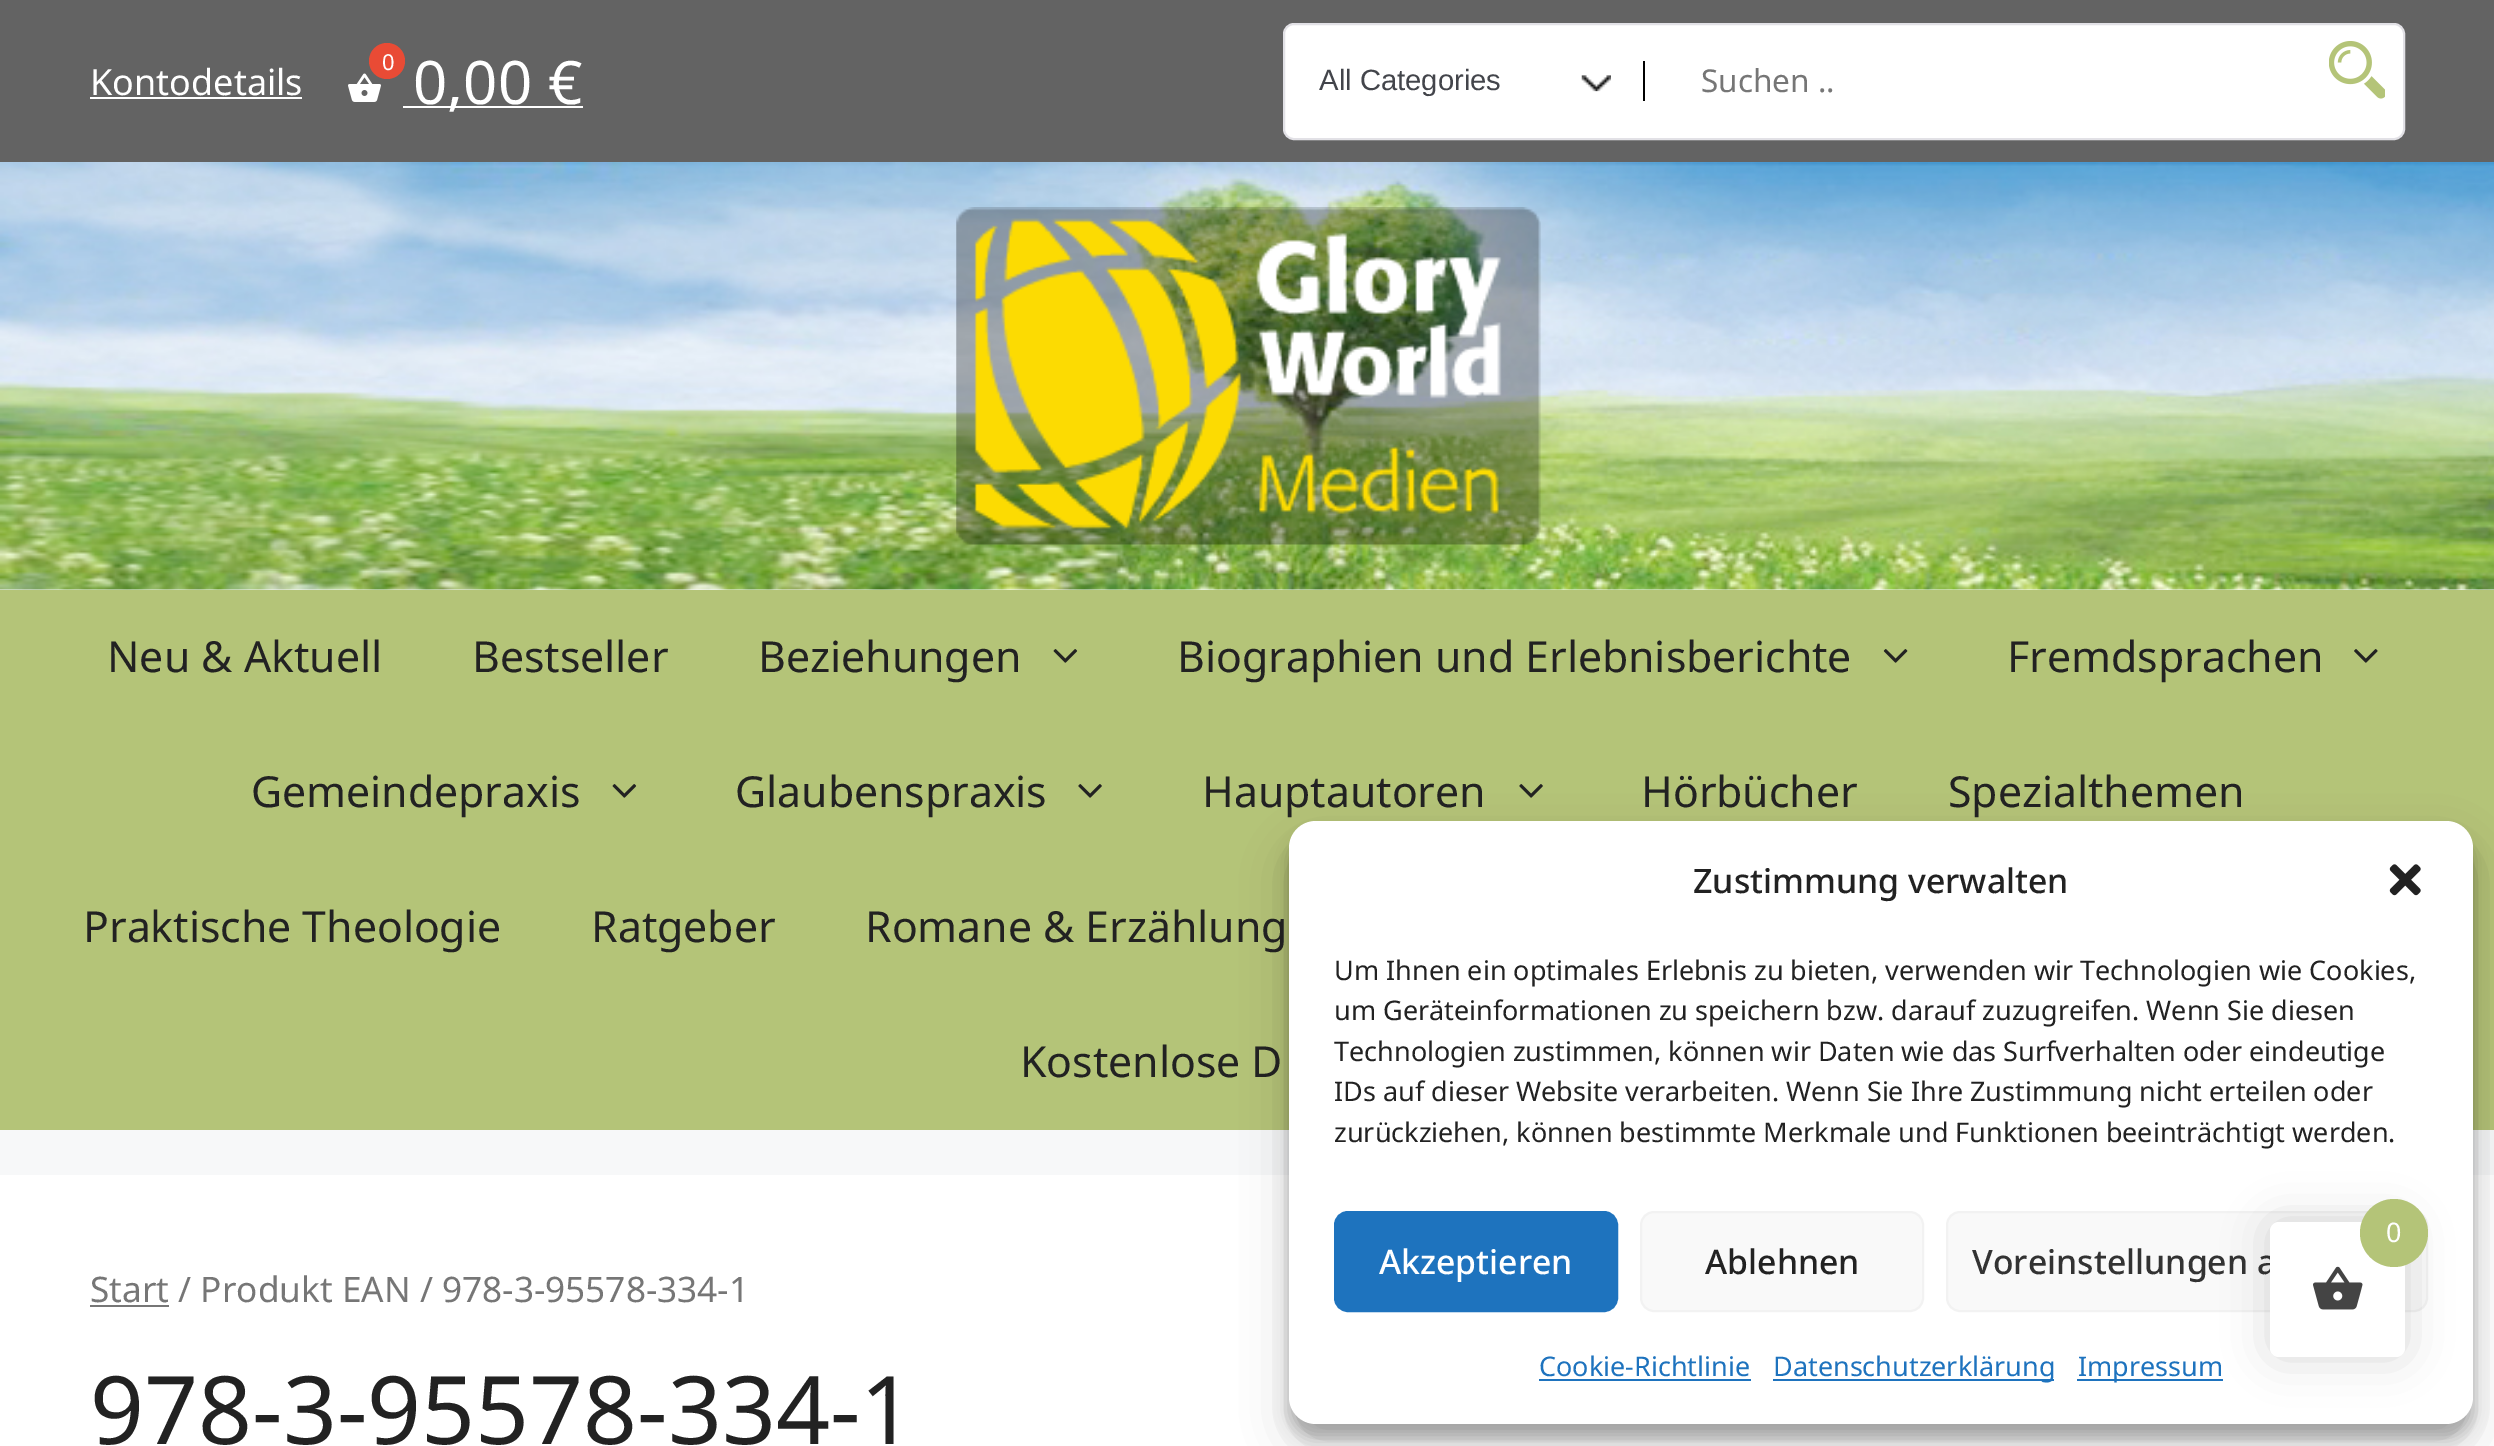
%!PS-Adobe-3.0
%%BoundingBox: 0 0 2494 1446
%%LanguageLevel: 3
%%Pages: 1
%%EndComments
%%BeginProlog
/f { fill } bind def
/S { stroke } bind def
/q { gsave } bind def
/Q { grestore } bind def
/w { setlinewidth } bind def
/fn { [ exch dup neg 0 0 3 -1 roll 0 0 ] selectfont } def
/tx { moveto show } def
/bx { rectfill } def
/al { dup .setfillconstantalpha .setstrokeconstantalpha } def
/ci { newpath 0 360 arc closepath } def
/rr { 5 dict begin { /r /h /w /y /x } { exch def } forall
  x r add y moveto x w add y 2 copy h add r arct x w add y h add x 1 index r arct
  x y h add x y r arct x y 2 copy exch w add exch r arct closepath end } def
/sh { 12 dict begin { /a /b /q /h /w /y /x } { exch def } forall gsave /was 0 def
  9 -2 -9 { dup b mul 4 div /e exch def 1 sub .425 mul 2.718 exch exp 1 add a .99 .min exch div /now exch def
    1 1 now sub 1 was sub div sub al /was now def
    w h .min e 2 mul add 0 gt { x e sub y e sub w e 2 mul add h e 2 mul add
      q e add b .6 mul add w h .min 2 div e add .min 0 .max rr fill } if } for grestore end } def
/im { 5 dict begin { /h /w /y /x /name } { exch def } forall
  gsave x y translate w h scale
  w h 8 [w 0 0 h 0 0] name (r) file false 3 colorimage grestore end } def
%%EndProlog
%%BeginSetup
<< /PageSize [2494 1446] /PageUsesTransparency true >> setpagedevice
%%EndSetup
%%Page: 1 1
0 .pushpdf14devicefilter
0 1446 translate 1 -1 scale
4 setmiterlimit
0.969 0.973 0.976 setrgbcolor
0 0 2494 1446 bx
0.388 setgray
0 0 2494 162 bx
/NotoSans-Regular 36 fn
1 setgray
(Kontodetails) 90 95 tx
90 97 212 2 bx
(image0.raw) 348 73 33 29 im
0.914 0.294 0.208 setrgbcolor
387 61 18 ci f
/NotoSans-Regular 22 fn
1 setgray
(0) 382 70 tx
403 106 180 2 bx
/NotoSans-Regular 60 fn
(0,00 €) 413 104 tx
1284 24 1120 115 10 rr q f Q
0.886 0.882 0.902 setrgbcolor
2 w
S
/LiberationSans-Regular 29.25 fn
0.263 0.271 0.294 setrgbcolor
(All Categories) 1319 90 tx
(image1.raw) 1581 75 30 17 im
0 setgray
1643 61 2 40 bx
/NotoSans-Regular 31.5 fn
0.463 setgray
(Suchen ..) 1701 92 tx
(image2.raw) 2329 41 56 58 im
(image3.raw) 0 162 2494 428 im
(image4.raw) 956 207 585 338 im
0.706 0.769 0.471 setrgbcolor
0 590 2494 540 bx
/NotoSans-Regular 42.75 fn
0.133 setgray
(Neu & Aktuell) 107 672 tx
(Bestseller) 472 672 tx
(Beziehungen) 758 672 tx
(image5.raw) 1053 649 25 14 im
(Biographien und Erlebnisberichte) 1177 672 tx
(image6.raw) 1883 649 25 14 im
(Fremdsprachen) 2007 672 tx
(image7.raw) 2354 649 24 14 im
(Gemeindepraxis) 251 807 tx
(image5.raw) 612 784 25 14 im
(Glaubenspraxis) 735 807 tx
(image8.raw) 1078 784 24 14 im
(Hauptautoren) 1202 807 tx
(image8.raw) 1519 784 24 14 im
(Hörbücher) 1641 807 tx
(Spezialthemen) 1948 807 tx
(Praktische Theologie) 83 942 tx
(Ratgeber) 591 942 tx
(Romane & Erzählung) 865 942 tx
(Kostenlose D) 1020 1077 tx
1 setgray
0 1175 2494 271 bx
0 setgray
1289 835 1184 603 27 7 0.23 sh
1289 844 1184 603 27 22.5 0.19 sh
1 setgray
1289 821 1184 603 27 rr f
/NotoSans-Medium 33.75 fn
0.133 setgray
(Zustimmung verwalten) 1693 893 tx
(image9.raw) 2389 864 32 32 im
/NotoSans-Regular 27 fn
(Um Ihnen ein optimales Erlebnis zu bieten, verwenden wir Technologien wie Cookies,) 1334 980 tx
(um Geräteinformationen zu speichern bzw. darauf zuzugreifen. Wenn Sie diesen) 1334 1020 tx
(Technologien zustimmen, können wir Daten wie das Surfverhalten oder eindeutige) 1334 1061 tx
(IDs auf dieser Website verarbeiten. Wenn Sie Ihre Zustimmung nicht erteilen oder) 1334 1101 tx
(zurückziehen, können bestimmte Merkmale und Funktionen beeinträchtigt werden.) 1334 1142 tx
0.118 0.451 0.745 setrgbcolor
1335 1212 282 99 13 rr q f Q
S
/NotoSans-Medium 33.75 fn
1 setgray
(Akzeptieren) 1379 1274 tx
0.976 setgray
1641 1212 282 99 13 rr q f Q
0.949 setgray
S
0.133 setgray
(Ablehnen) 1705 1274 tx
0.976 setgray
1947 1212 480 99 13 rr q f Q
0.949 setgray
S
0.2 setgray
(Voreinstellungen a) 1972 1274 tx
/NotoSans-Regular 27 fn
0.118 0.451 0.745 setrgbcolor
(Cookie-Richtlinie) 1539 1376 tx
1539 1379 212 2 bx
1773 1379 281 2 bx
(Datenschutzerklärung) 1773 1376 tx
2077 1379 146 2 bx
(Impressum) 2078 1376 tx
0 setgray
2270 1222 135 135 9 22.5 0.15 sh
1 setgray
2270 1222 135 135 9 rr f
(image10.raw) 2313 1266 50 44 im
0.706 0.769 0.471 setrgbcolor
2394 1233 34 ci f
1 setgray
(0) 2386 1242 tx
/NotoSans-Regular 35.2 fn
0.463 setgray
(Start / Produkt EAN / 978-3-95578-334-1) 90 1302 tx
90 1305 79 2 bx
/NotoSans-Regular 94.5 fn
0.133 setgray
(978-3-95578-334-1) 90 1444 tx
.poppdf14devicefilter showpage
%%EOF
